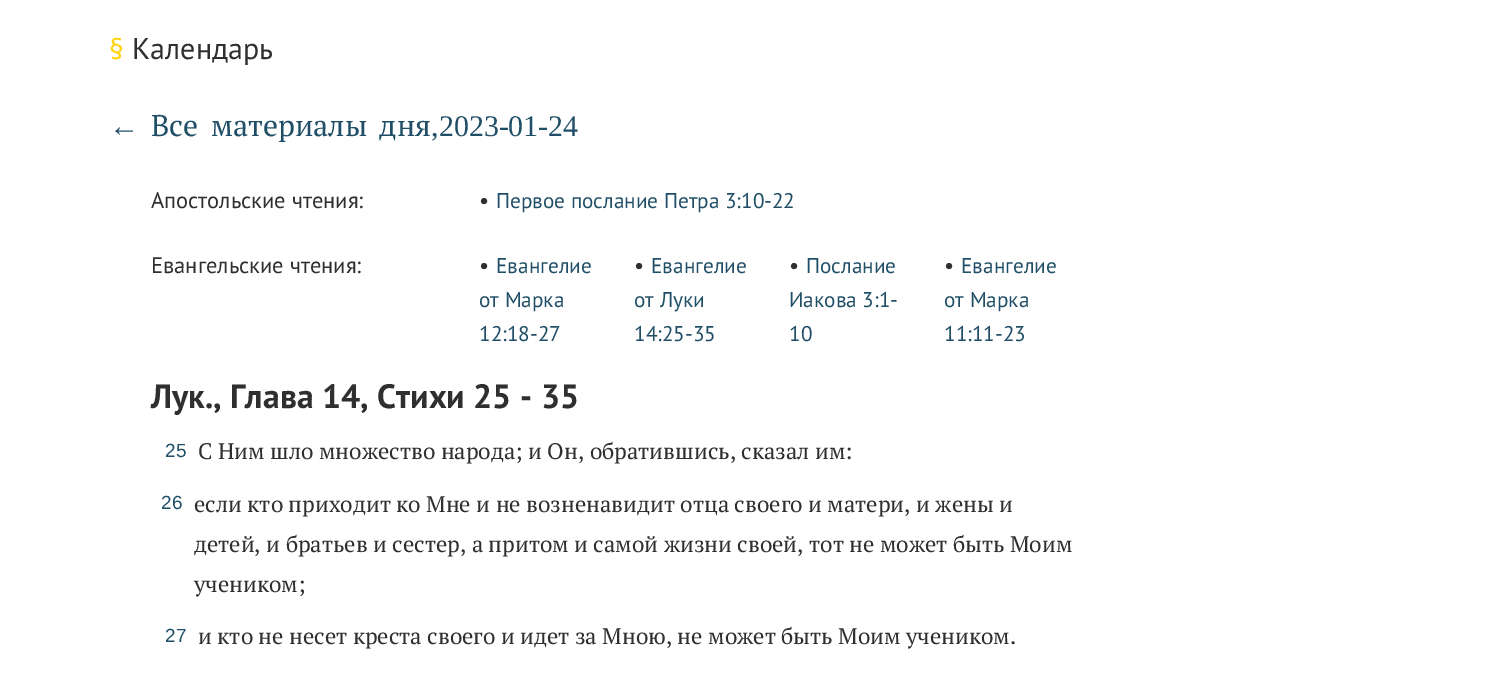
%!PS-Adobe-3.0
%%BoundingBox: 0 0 1486 677
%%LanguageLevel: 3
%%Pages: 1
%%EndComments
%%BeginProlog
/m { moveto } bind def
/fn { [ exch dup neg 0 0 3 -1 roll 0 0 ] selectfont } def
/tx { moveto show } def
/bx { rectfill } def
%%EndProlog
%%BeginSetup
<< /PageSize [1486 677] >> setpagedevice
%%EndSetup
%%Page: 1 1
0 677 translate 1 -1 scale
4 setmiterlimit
1 setgray
0 0 1486 677 bx
/PTSans-Regular 30 fn
1 0.835 0.071 setrgbcolor
(§) 109 59 tx
0.184 setgray
(Календарь) 132 59 tx
/LiberationSerif-Regular 30 fn
0.122 0.306 0.4 setrgbcolor
(←) 109 136 tx
/PTSerif-Regular 30 fn
151 136 m 5 0 32 (Все материалы дня) widthshow
/LiberationSerif-Regular 30 fn
(,2023-01-24) 431 136 tx
/PTSans-Regular 22.5 fn
0.184 setgray
(Апостольские чтения:) 151 208 tx
(•) 479 208 tx
/PTSans-Regular 21.25 fn
0.122 0.306 0.4 setrgbcolor
(Первое послание Петра 3:10-22) 496 208 tx
/PTSans-Regular 22.5 fn
0.184 setgray
(Евангельские чтения:) 151 273 tx
(•) 479 273 tx
/PTSans-Regular 21.25 fn
0.122 0.306 0.4 setrgbcolor
(Евангелие) 496 273 tx
(от Марка) 479 307 tx
(12:18-27) 479 341 tx
/PTSans-Regular 22.5 fn
0.184 setgray
(•) 634 273 tx
/PTSans-Regular 21.25 fn
0.122 0.306 0.4 setrgbcolor
(Евангелие) 651 273 tx
(от Луки) 634 307 tx
(14:25-35) 634 341 tx
/PTSans-Regular 22.5 fn
0.184 setgray
(•) 789 273 tx
/PTSans-Regular 21.25 fn
0.122 0.306 0.4 setrgbcolor
(Послание) 806 273 tx
(Иакова 3:1-) 789 307 tx
(10) 789 341 tx
/PTSans-Regular 22.5 fn
0.184 setgray
(•) 944 273 tx
/PTSans-Regular 21.25 fn
0.122 0.306 0.4 setrgbcolor
(Евангелие) 961 273 tx
(от Марка) 944 307 tx
(11:11-23) 944 341 tx
/PTSans-Bold 33.75 fn
0.184 setgray
(Лук., Глава 14, Стихи 25 - 35) 151 408 tx
/LiberationSans-Regular 19 fn
0.122 0.306 0.4 setrgbcolor
(25) 165 457 tx
/PTSerif-Regular 22.5 fn
0.184 setgray
(С Ним шло множество народа; и Он, обратившись, сказал им:) 198 459 tx
/LiberationSans-Regular 19 fn
0.122 0.306 0.4 setrgbcolor
(26) 161 509 tx
/PTSerif-Regular 22.5 fn
0.184 setgray
(если кто приходит ко Мне и не возненавидит отца своего и матери, и жены и) 194 512 tx
(детей, и братьев и сестер, а притом и самой жизни своей, тот не может быть Моим) 194 552 tx
(учеником;) 194 592 tx
/LiberationSans-Regular 19 fn
0.122 0.306 0.4 setrgbcolor
(27) 165 642 tx
/PTSerif-Regular 22.5 fn
0.184 setgray
(и кто не несет креста своего и идет за Мною, не может быть Моим учеником.) 198 644 tx
showpage
%%EOF
